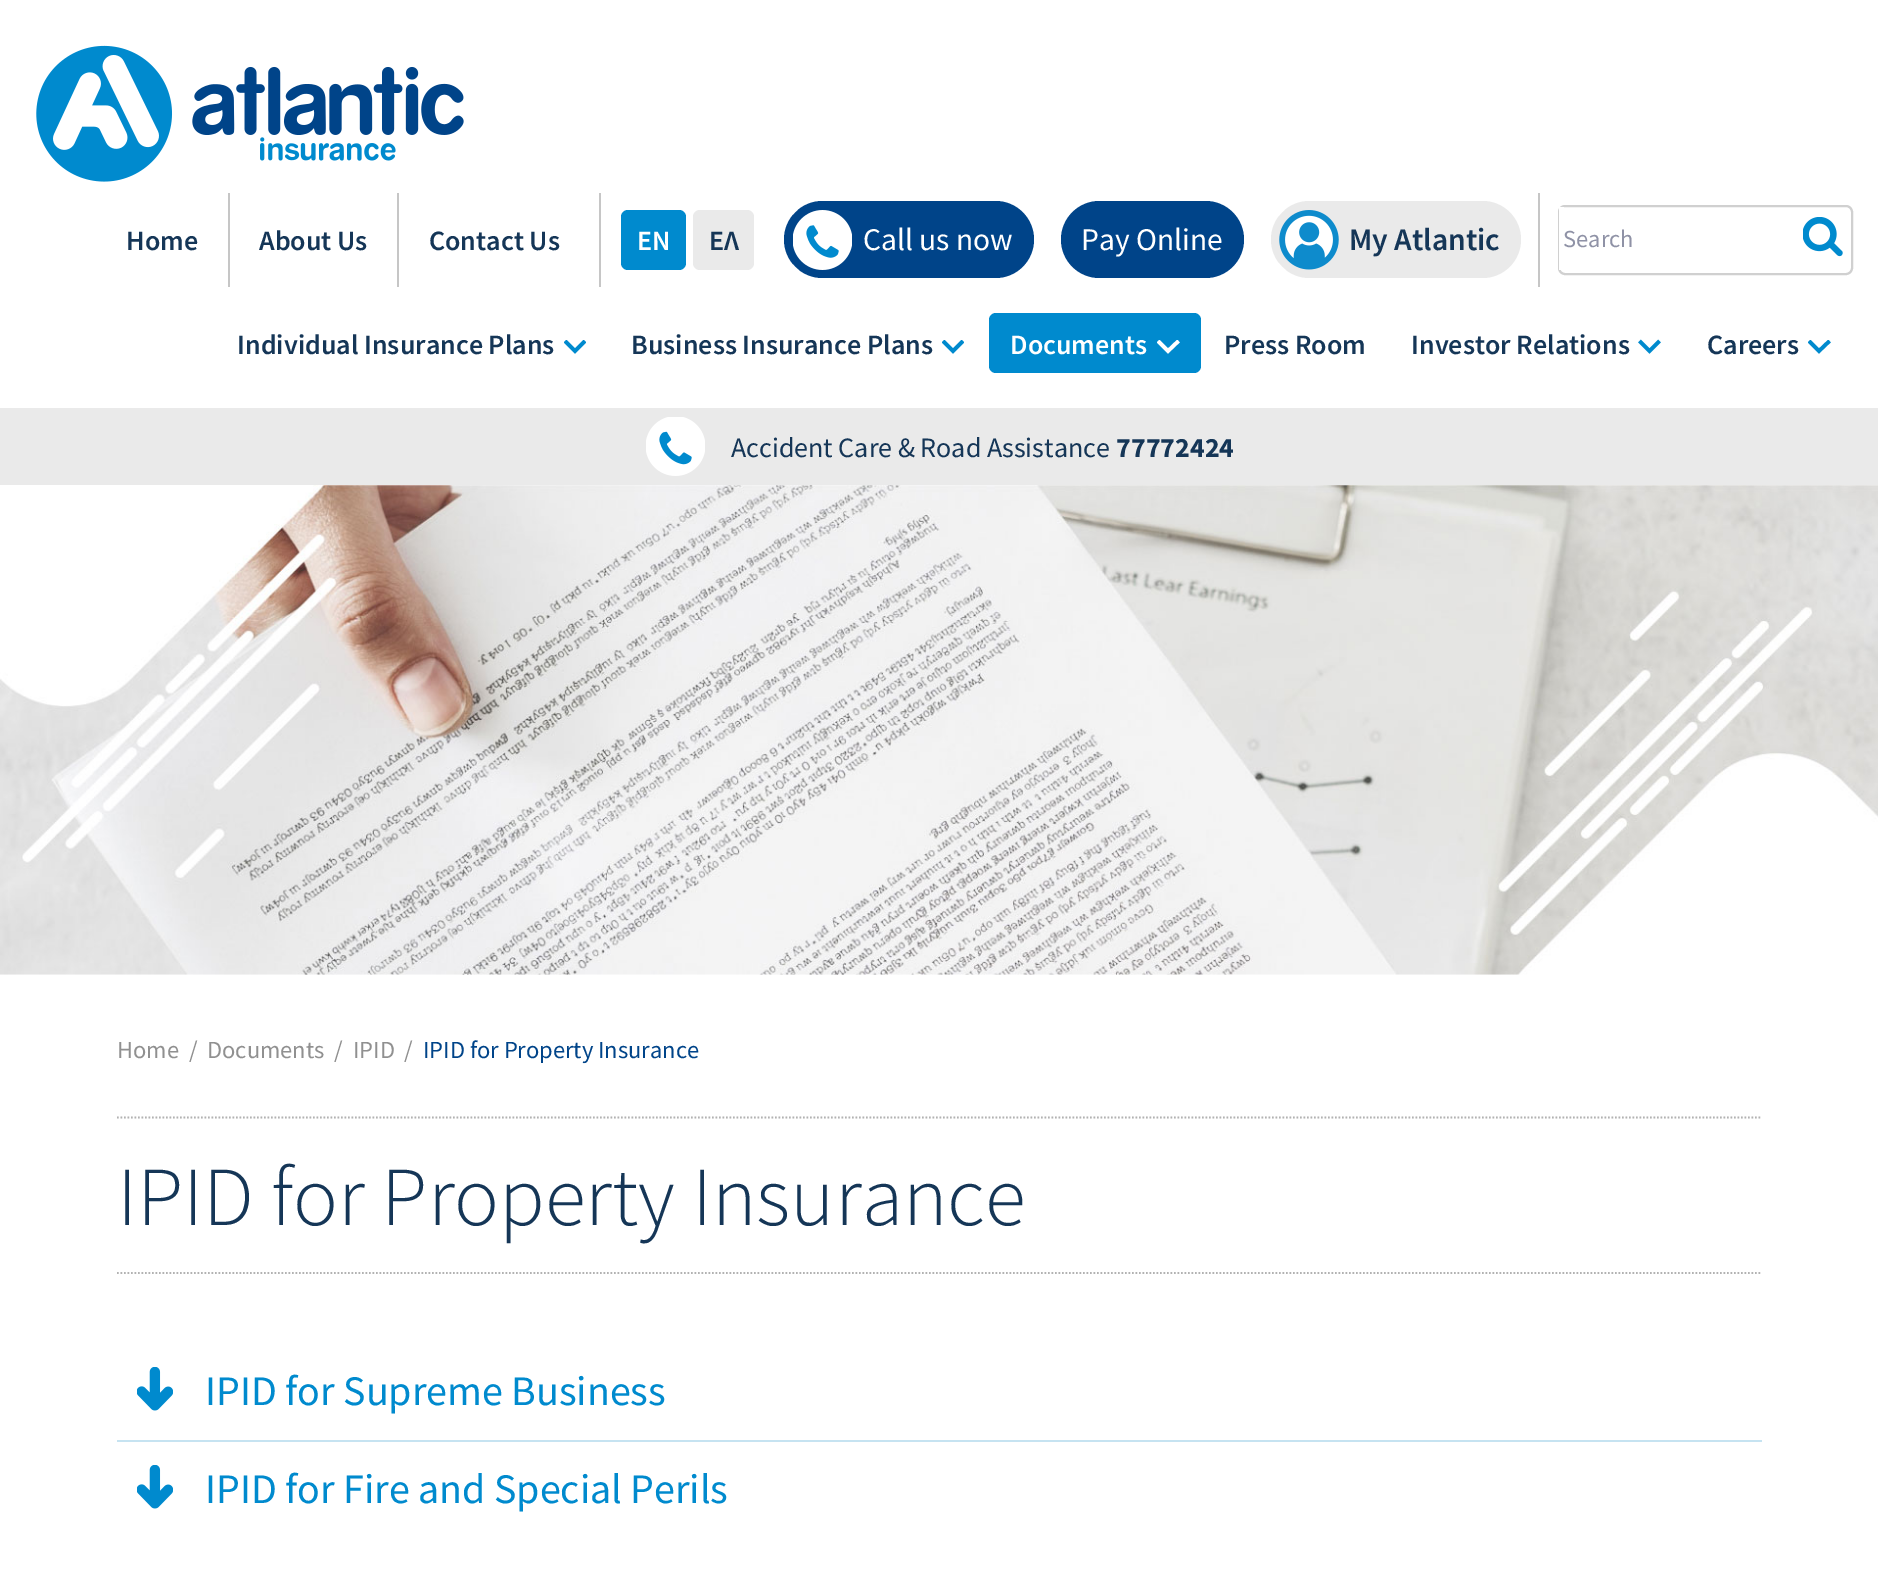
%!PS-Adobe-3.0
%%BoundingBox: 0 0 1878 1585
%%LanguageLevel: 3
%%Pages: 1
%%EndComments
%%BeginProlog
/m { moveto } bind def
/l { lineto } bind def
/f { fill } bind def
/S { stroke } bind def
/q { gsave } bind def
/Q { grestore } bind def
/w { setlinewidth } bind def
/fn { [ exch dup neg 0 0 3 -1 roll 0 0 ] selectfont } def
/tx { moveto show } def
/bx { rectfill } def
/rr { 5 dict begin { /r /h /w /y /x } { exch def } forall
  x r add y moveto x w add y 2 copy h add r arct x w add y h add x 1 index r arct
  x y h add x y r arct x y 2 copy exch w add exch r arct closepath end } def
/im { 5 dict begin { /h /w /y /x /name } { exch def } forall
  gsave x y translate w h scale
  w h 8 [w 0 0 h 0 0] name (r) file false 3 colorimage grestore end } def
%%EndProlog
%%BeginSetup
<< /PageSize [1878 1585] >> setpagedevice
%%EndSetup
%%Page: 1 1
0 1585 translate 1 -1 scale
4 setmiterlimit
1 setgray
0 0 1878 1585 bx
(image0.raw) 36 45 428 137 im
0.776 setgray
228 193 2 94 bx
/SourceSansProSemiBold-SemiBold 28 fn
0.082 0.212 0.341 setrgbcolor
(Home) 126 250 tx
0.776 setgray
397 193 2 94 bx
0.082 0.212 0.341 setrgbcolor
(About Us) 259 250 tx
(Contact Us) 429 250 tx
0.776 setgray
599 193 2 94 bx
0 0.541 0.808 setrgbcolor
621 210 65 60 7 rr f
1 setgray
(EN) 637 250 tx
0.918 setgray
693 210 61 60 7 rr f
0.082 0.212 0.341 setrgbcolor
(ΕΛ) 709 250 tx
0 0.267 0.537 setrgbcolor
784 201 250 77 38.5 rr f
(image1.raw) 793 210 59 60 im
/SourceSansPro-Regular 31.5 fn
1 setgray
(Call us now) 863 250 tx
0 0.267 0.537 setrgbcolor
1061 201 183 77 38.5 rr f
1 setgray
(Pay Online) 1081 250 tx
0.918 setgray
1271 201 250 77 38.5 rr f
(image2.raw) 1279 210 60 60 im
/SourceSansProSemiBold-SemiBold 31.5 fn
0.082 0.212 0.341 setrgbcolor
(My Atlantic) 1349 250 tx
0.776 setgray
1538 193 2 94 bx
0.816 setgray
2 w
1559 206 293 68 6 rr S
1 setgray
1559 207 5 63 bx
/SourceSansPro-Regular 24.5 fn
0.561 0.573 0.651 setrgbcolor
(Search) 1563 247 tx
(image3.raw) 1803 217 40 40 im
/SourceSansProSemiBold-SemiBold 28 fn
0.082 0.212 0.341 setrgbcolor
(Individual Insurance Plans) 237 354 tx
q
564 340 22 14 rectclip
0 0.541 0.808 setrgbcolor
3.7 w
565 341 m 575 351 l 585 341 l S
Q
(Business Insurance Plans) 631 354 tx
q
942 340 22 14 rectclip
0 0.541 0.808 setrgbcolor
3.7 w
943 341 m 953 351 l 963 341 l S
Q
0 0.541 0.808 setrgbcolor
989 313 212 60 7 rr f
1 setgray
(Documents) 1010 354 tx
q
1157 340 23 14 rectclip
3.7 w
1158 341 m 1168 351 l 1178.5 341 l S
Q
0.082 0.212 0.341 setrgbcolor
(Press Room) 1224 354 tx
(Investor Relations) 1411 354 tx
0 0.541 0.808 setrgbcolor
3.7 w
1639.5 341 m 1649.5 351 l 1659.5 341 l S
0.082 0.212 0.341 setrgbcolor
(Careers) 1707 354 tx
q
1808 340 23 14 rectclip
0 0.541 0.808 setrgbcolor
1809 341 m 1819 351 l 1829.5 341 l S
Q
0.918 setgray
0 408 1878 77 bx
(image4.raw) 646 417 59 59 im
/SourceSansPro-Regular 28 fn
0.082 0.212 0.341 setrgbcolor
(Accident Care & Road Assistance) 731 457 tx
/SourceSansPro-Bold 28 fn
(77772424) 1116 457 tx
(image5.raw) 0 485 1878 490 im
/SourceSansPro-Regular 24.5 fn
0.565 setgray
(Home) 117 1058 tx
(/) 189 1058 tx
(Documents) 207 1058 tx
(/) 334 1058 tx
(IPID) 353 1058 tx
(/) 404 1058 tx
0 0.267 0.537 setrgbcolor
(IPID for Property Insurance) 423 1058 tx
0.698 setgray
1.8 w
[1.75 1.75] 0 setdash
117 1117.5 m 1762 1117.5 l S
117 1273 m 1762 1273 l S
/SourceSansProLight-Light 84 fn
0.082 0.212 0.341 setrgbcolor
(IPID for Property Insurance) 117 1225 tx
(image6.raw) 137 1367 36 44 im
/SourceSansPro-Regular 42 fn
0 0.541 0.808 setrgbcolor
(IPID for Supreme Business) 205 1405 tx
0.776 0.89 0.945 setrgbcolor
117 1440 1645 2 bx
(image6.raw) 137 1465 36 44 im
0 0.541 0.808 setrgbcolor
(IPID for Fire and Special Perils) 205 1503 tx
showpage
%%EOF
